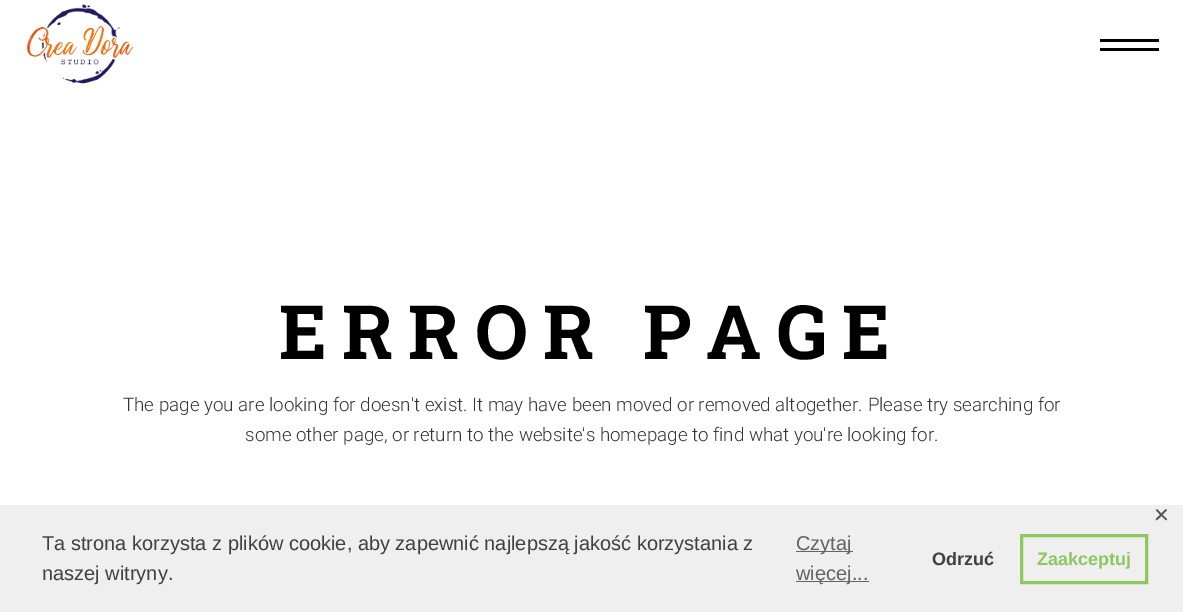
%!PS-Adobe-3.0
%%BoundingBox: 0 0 1183 612
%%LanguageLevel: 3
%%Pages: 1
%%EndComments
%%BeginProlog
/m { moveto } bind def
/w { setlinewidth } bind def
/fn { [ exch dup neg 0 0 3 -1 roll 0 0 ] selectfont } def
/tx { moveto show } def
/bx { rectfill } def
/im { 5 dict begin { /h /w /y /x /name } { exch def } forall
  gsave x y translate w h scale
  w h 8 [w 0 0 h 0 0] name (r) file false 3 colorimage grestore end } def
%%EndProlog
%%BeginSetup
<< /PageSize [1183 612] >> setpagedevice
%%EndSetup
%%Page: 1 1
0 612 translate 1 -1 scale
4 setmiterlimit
1 setgray
0 0 1183 612 bx
(image0.raw) 26 4 108 80 im
0 setgray
1100 39 59 3 bx
1100 48 59 3 bx
/RobotoSlab-Bold 75 fn
279 359 m 15 0 (ERROR PAGE) ashow
/Roboto-Light 18.75 fn
0.208 setgray
(The page you are looking for doesn't exist. It may have been moved or removed altogether. Please try searching for) 123 411 tx
(some other page, or return to the website's homepage to find what you're looking for.) 245 441 tx
0.937 setgray
0 505 1183 107 bx
/DejaVuSans-Regular 20 fn
0.322 setgray
(✕) 1153 522 tx
/LiberationSans-Regular 20 fn
0.251 setgray
(Ta strona korzysta z plików cookie, aby zapewnić najlepszą jakość korzystania z) 42 550 tx
(naszej witryny.) 42 580 tx
0.388 setgray
796 551 57 1 bx
(Czytaj) 796 550 tx
796 581 73 1 bx
(więcej...) 796 580 tx
/LiberationSans-Bold 18 fn
0.251 setgray
(Odrzuć) 932 565 tx
0.557 0.78 0.376 setrgbcolor
3 w
1021.5 535.5 125 47 rectstroke
(Zaakceptuj) 1037 565 tx
showpage
%%EOF
